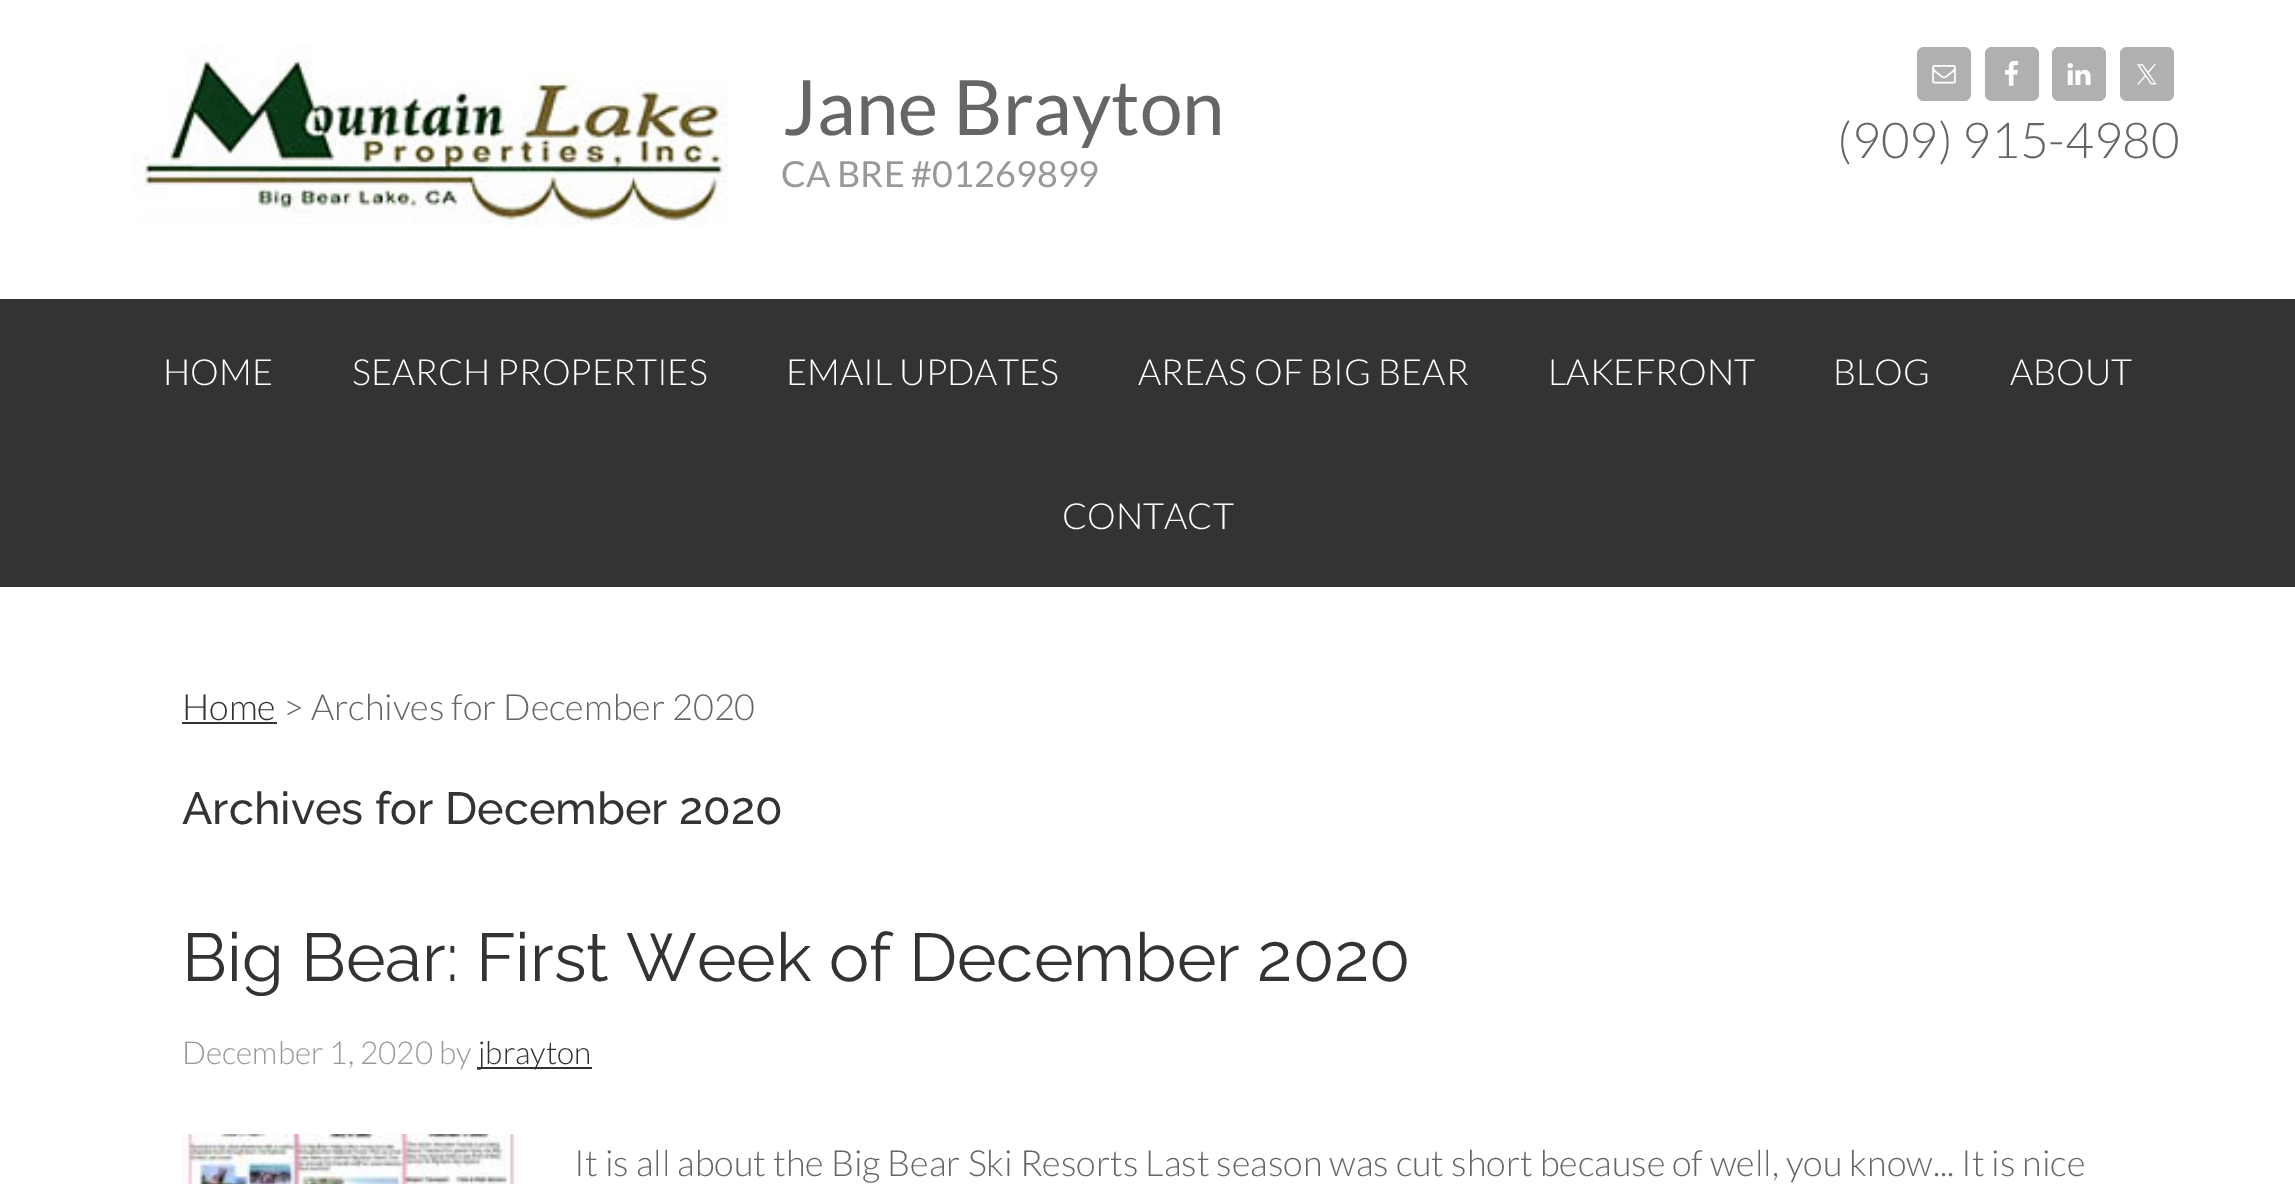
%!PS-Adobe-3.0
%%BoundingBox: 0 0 2295 1184
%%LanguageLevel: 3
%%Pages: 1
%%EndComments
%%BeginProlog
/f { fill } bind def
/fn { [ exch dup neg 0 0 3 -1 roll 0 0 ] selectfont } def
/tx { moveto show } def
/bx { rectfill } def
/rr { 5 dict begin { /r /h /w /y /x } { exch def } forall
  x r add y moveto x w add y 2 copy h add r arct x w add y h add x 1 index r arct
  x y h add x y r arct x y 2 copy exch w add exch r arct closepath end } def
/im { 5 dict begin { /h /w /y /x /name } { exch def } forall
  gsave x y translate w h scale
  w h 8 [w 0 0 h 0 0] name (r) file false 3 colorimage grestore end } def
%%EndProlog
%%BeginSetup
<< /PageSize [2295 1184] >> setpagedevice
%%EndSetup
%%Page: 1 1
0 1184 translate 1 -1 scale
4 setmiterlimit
1 setgray
0 0 2295 1184 bx
(image0.raw) 133 45 595 181 im
/Lato-Regular 76.5 fn
0.4 setgray
(Jane Brayton) 783 135 tx
/Lato-Regular 36 fn
0.6 setgray
(CA BRE #01269899) 781 187 tx
0.69 0.69 0.694 setrgbcolor
1917 47 54 54 7 rr f
(image1.raw) 1932 65 24 19 im
1985 47 54 54 7 rr f
(image2.raw) 2005 61 13 25 im
2052 47 54 54 7 rr f
(image3.raw) 2067 63 24 22 im
2120 47 54 54 7 rr f
(image4.raw) 2137 64 20 21 im
/Lato-Light 49.5 fn
0.4 setgray
(\(909\) 915-4980) 1837 158 tx
0.2 setgray
0 299 2295 288 bx
/Lato-Light 36 fn
1 setgray
(HOME) 163 385 tx
(SEARCH PROPERTIES) 352 385 tx
(EMAIL UPDATES) 786 385 tx
(AREAS OF BIG BEAR) 1138 385 tx
(LAKEFRONT) 1548 385 tx
(BLOG) 1833 385 tx
(ABOUT) 2010 385 tx
(CONTACT) 1062 529 tx
0.2 setgray
(Home) 182 720 tx
182 722 95 2 bx
0.4 setgray
(> Archives for December 2020) 283 720 tx
/Raleway-Medium 45 fn
0.2 setgray
(Archives for December 2020) 182 824 tx
/Raleway-Regular 67.5 fn
(Big Bear: First Week of December 2020) 182 981 tx
/Lato-Light 31.5 fn
0.6 setgray
(December 1, 2020 by) 182 1064 tx
0.2 setgray
477 1067 115 2 bx
(jbrayton) 478 1064 tx
(image5.raw) 182 1134 337 50 im
/Lato-Light 36 fn
0.4 setgray
(It is all about the Big Bear Ski Resorts Last season was cut short because of well, you know... It is nice) 574 1176 tx
showpage
%%EOF
